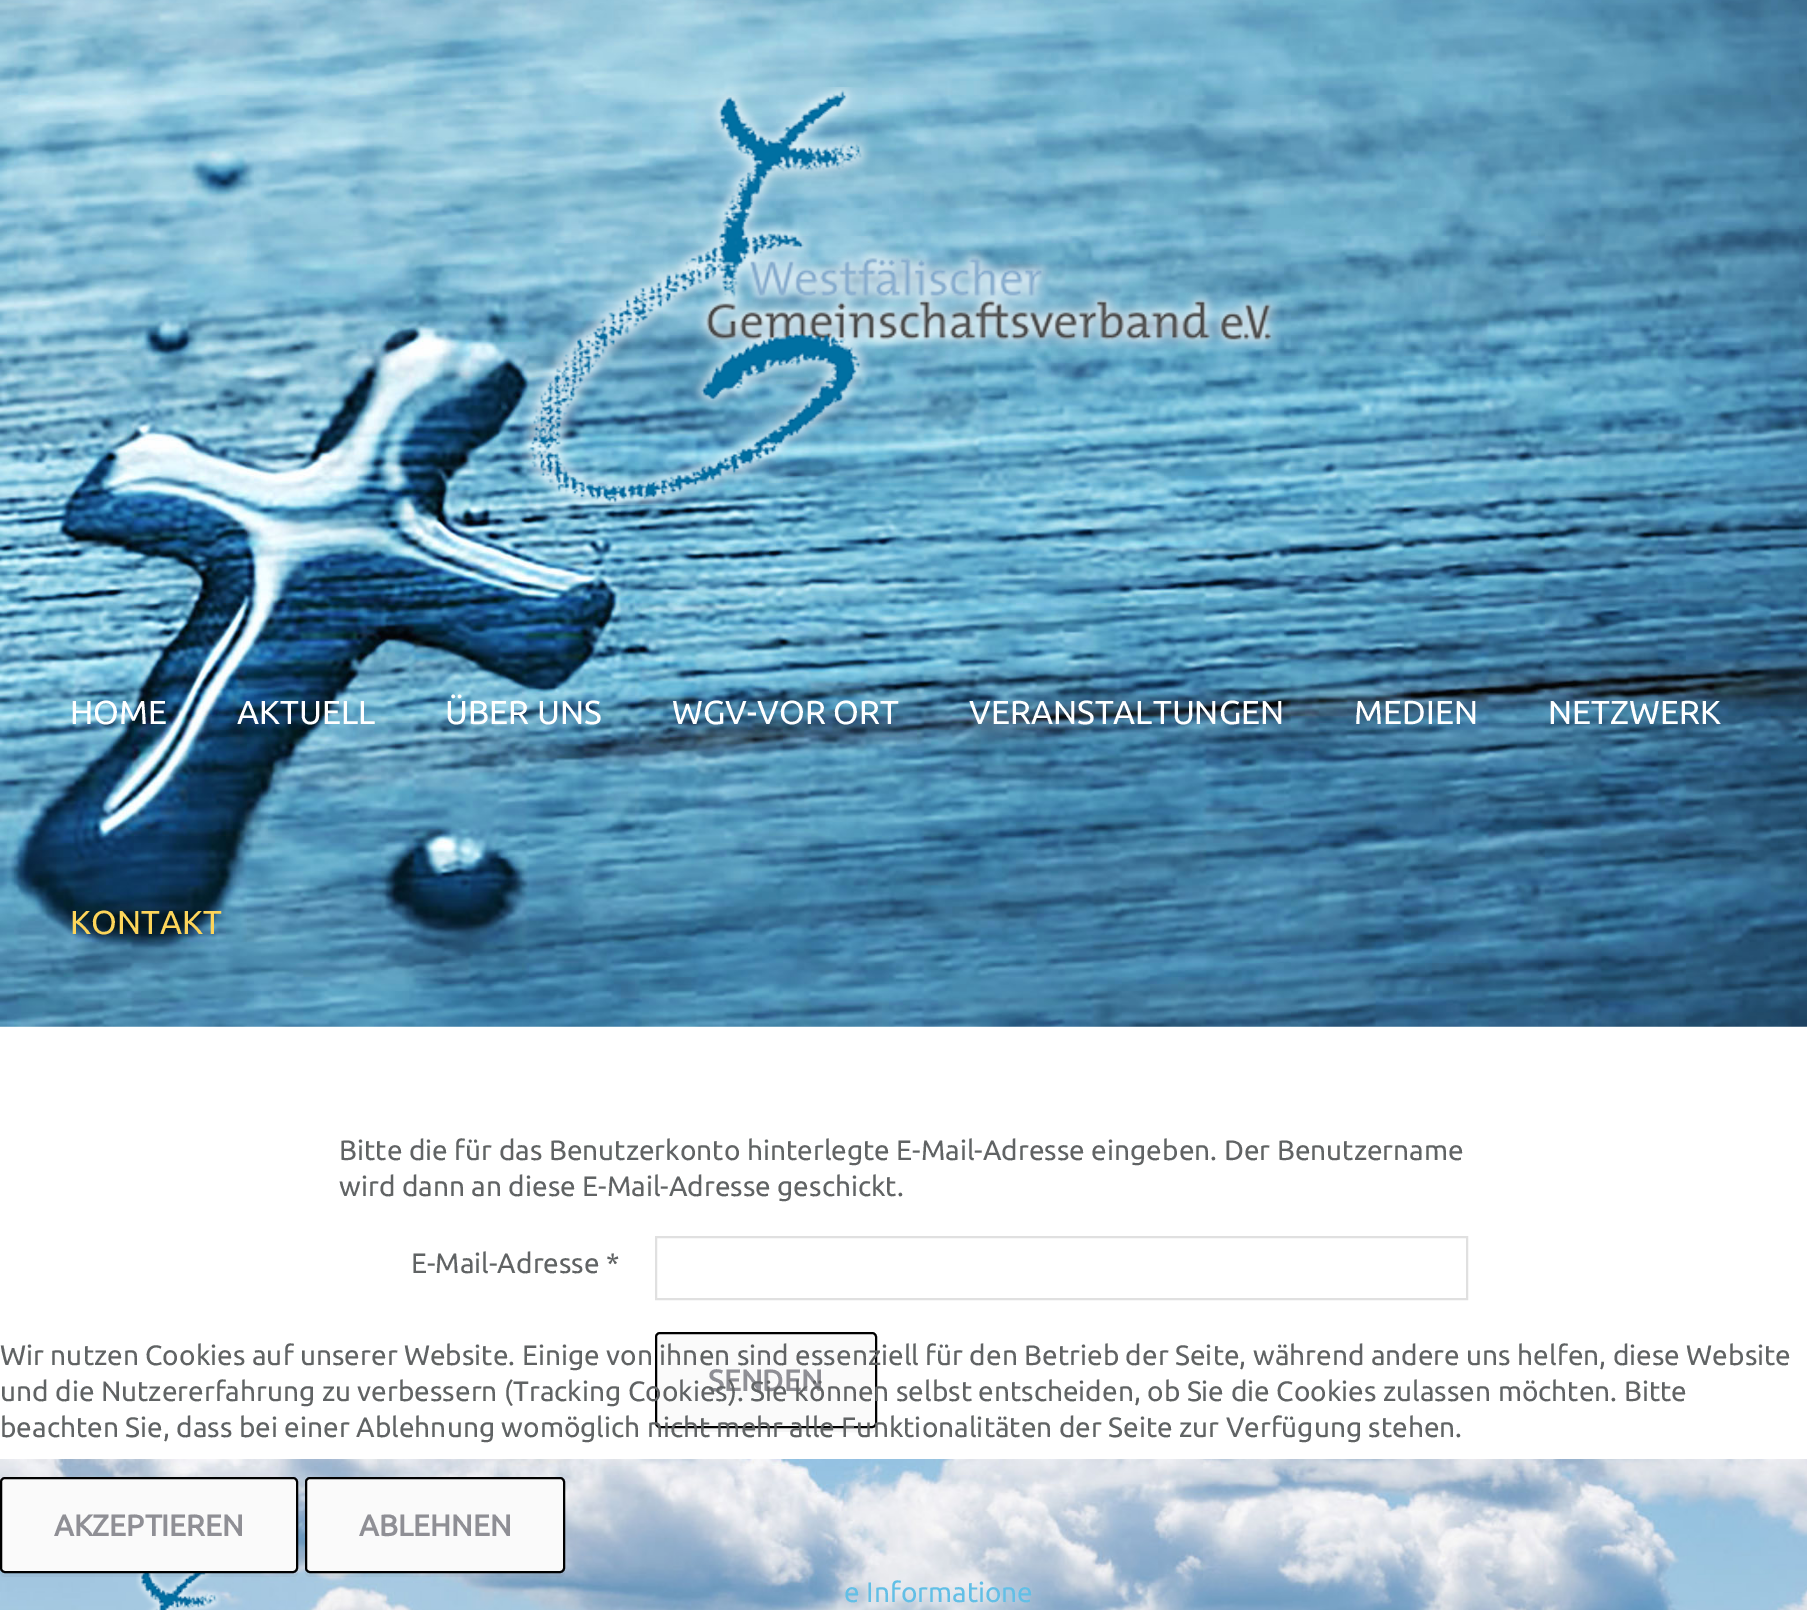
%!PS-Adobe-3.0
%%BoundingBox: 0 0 1807 1610
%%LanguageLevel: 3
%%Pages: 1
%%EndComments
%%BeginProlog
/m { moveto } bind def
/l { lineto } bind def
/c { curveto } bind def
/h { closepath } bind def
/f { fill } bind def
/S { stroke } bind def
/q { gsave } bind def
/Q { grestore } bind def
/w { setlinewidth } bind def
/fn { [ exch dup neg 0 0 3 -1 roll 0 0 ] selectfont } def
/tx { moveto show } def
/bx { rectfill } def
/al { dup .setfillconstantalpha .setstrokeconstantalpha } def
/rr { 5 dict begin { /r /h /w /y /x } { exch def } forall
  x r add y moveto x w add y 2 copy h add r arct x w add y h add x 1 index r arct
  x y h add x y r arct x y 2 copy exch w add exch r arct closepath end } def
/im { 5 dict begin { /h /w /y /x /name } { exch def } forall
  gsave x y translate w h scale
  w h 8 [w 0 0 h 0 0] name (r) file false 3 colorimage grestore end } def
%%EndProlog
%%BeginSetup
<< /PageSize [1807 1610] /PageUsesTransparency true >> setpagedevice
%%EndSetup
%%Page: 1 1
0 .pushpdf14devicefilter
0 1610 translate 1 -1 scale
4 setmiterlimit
1 setgray
0 0 1807 1610 bx
(image0.raw) 0 0 1807 1027 im
(image1.raw) 520 87 761 419 im
/Ubuntu-Regular 33.25 fn
(HOME) 70 724 tx
(AKTUELL) 237 724 tx
(ÜBER UNS) 445 724 tx
(WGV-VOR ORT) 672 724 tx
(VERANSTALTUNGEN) 969 724 tx
(MEDIEN) 1354 724 tx
(NETZWERK) 1548 724 tx
0.992 0.835 0.353 setrgbcolor
(KONTAKT) 70 934 tx
/Ubuntu-Regular 28 fn
0.376 0.388 0.392 setrgbcolor
(Bitte die für das Benutzerkonto hinterlegte E-Mail-Adresse eingeben. Der Benutzername) 339 1160 tx
(wird dann an diese E-Mail-Adresse geschickt.) 339 1196 tx
(E-Mail-Adresse *) 411 1273 tx
0.878 setgray
2 w
656 1237 811 62 rectstroke
0.961 setgray
655 1425 m 655 1428 656 1432 660 1432 c 837 1432 l 884 1432 877 1441 877 1398 c 877 1338 l 877 1423 l 877 1426 874 1428 872 1428 c 660 1428 l 658 1428 656 1427 655 1425 c h f
0.98 setgray
656 1333 220 94 4 rr q f Q
0 setgray
S
/Ubuntu-Bold 29.75 fn
0.561 0.561 0.584 setrgbcolor
(SENDEN) 708 1391 tx
/Ubuntu-Regular 28 fn
0.376 0.388 0.392 setrgbcolor
(Wir nutzen Cookies auf unserer Website. Einige von ihnen sind essenziell für den Betrieb der Seite, während andere uns helfen, diese Website) 0 1365 tx
(und die Nutzererfahrung zu verbessern \(Tracking Cookies\). Sie können selbst entscheiden, ob Sie die Cookies zulassen möchten. Bitte) 0 1401 tx
(beachten Sie, dass bei einer Ablehnung womöglich nicht mehr alle Funktionalitäten der Seite zur Verfügung stehen.) 0 1437 tx
(image2.raw) 0 1459 1807 151 im
(image3.raw) 136 1573 85 37 im
0.04 al
0 setgray
0 1568 m 0 1572 l 0 1575 2 1577 5 1577 c 293 1577 l 296 1577 298 1575 298 1572 c 298 1486 l 298 1484 l 298 1568 l 298 1571 295 1573 292 1573 c 5 1573 l 2 1573 0 1571 0 1568 c h f
1 al
0.98 setgray
1 1478 296 94 4 rr q f Q
0 setgray
S
/Ubuntu-Bold 29.75 fn
0.561 0.561 0.584 setrgbcolor
(AKZEPTIEREN) 54 1536 tx
0.04 al
0 setgray
305 1570 m 305 1572 l 305 1575 307 1577 310 1577 c 560 1577 l 563 1577 565 1575 565 1572 c 565 1570 l 564 1572 562 1573 560 1573 c 310 1573 l 308 1573 306 1572 305 1570 c h f
1 al
0.98 setgray
306 1478 258 94 4 rr q f Q
0 setgray
S
0.561 0.561 0.584 setrgbcolor
(ABLEHNEN) 359 1536 tx
/Ubuntu-Regular 28 fn
0.384 0.749 0.902 setrgbcolor
(e Informatione) 844 1602 tx
.poppdf14devicefilter showpage
%%EOF
